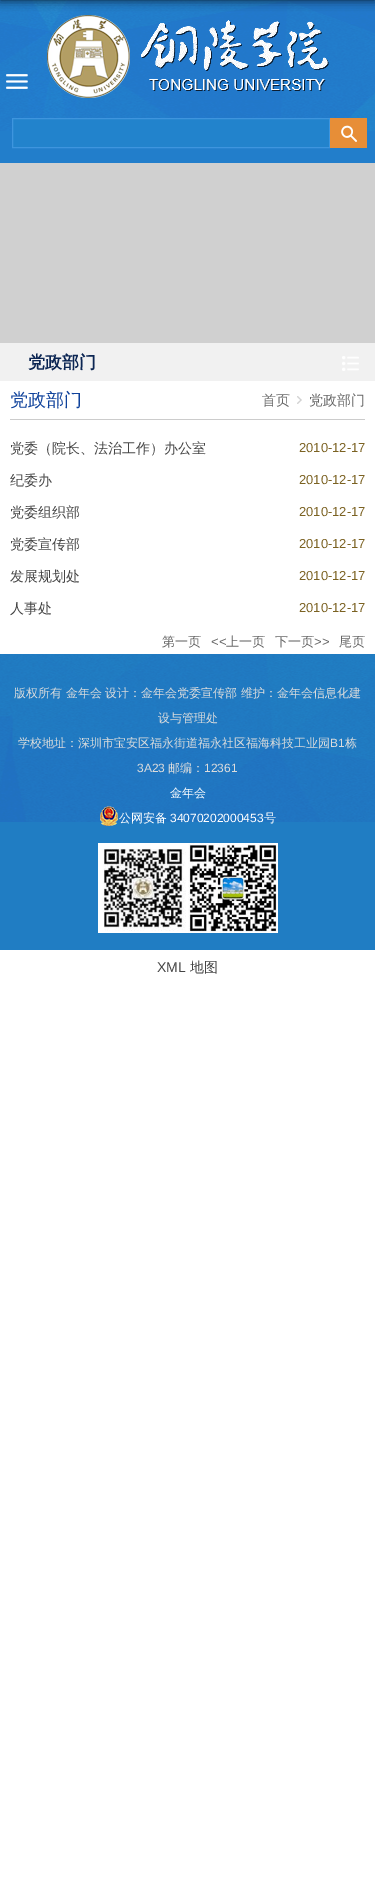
%!PS-Adobe-3.0
%%BoundingBox: 0 0 375 1894
%%LanguageLevel: 3
%%Pages: 1
%%EndComments
%%BeginProlog
/m { moveto } bind def
/l { lineto } bind def
/h { closepath } bind def
/f { fill } bind def
/S { stroke } bind def
/q { gsave } bind def
/Q { grestore } bind def
/fn { [ exch dup neg 0 0 3 -1 roll 0 0 ] selectfont } def
/tx { moveto show } def
/bx { rectfill } def
/al { dup .setfillconstantalpha .setstrokeconstantalpha } def
/rr { 5 dict begin { /r /h /w /y /x } { exch def } forall
  x r add y moveto x w add y 2 copy h add r arct x w add y h add x 1 index r arct
  x y h add x y r arct x y 2 copy exch w add exch r arct closepath end } def
/sh { 12 dict begin { /a /b /q /h /w /y /x } { exch def } forall gsave /was 0 def
  9 -2 -9 { dup b mul 4 div /e exch def 1 sub .425 mul 2.718 exch exp 1 add a .99 .min exch div /now exch def
    1 1 now sub 1 was sub div sub al /was now def
    w h .min e 2 mul add 0 gt { x e sub y e sub w e 2 mul add h e 2 mul add
      q e add b .6 mul add w h .min 2 div e add .min 0 .max rr fill } if } for grestore end } def
/im { 5 dict begin { /h /w /y /x /name } { exch def } forall
  gsave x y translate w h scale
  w h 8 [w 0 0 h 0 0] name (r) file false 3 colorimage grestore end } def
%%EndProlog
%%BeginSetup
<< /PageSize [375 1894] /PageUsesTransparency true >> setpagedevice
%%EndSetup
%%Page: 1 1
0 .pushpdf14devicefilter
0 1894 translate 1 -1 scale
4 setmiterlimit
1 setgray
0 0 375 1894 bx
0.133 0.494 0.796 setrgbcolor
0 131 375 32 bx
(image0.raw) 0 0 375 131 im
(image1.raw) 6 74 22 15 im
(image2.raw) 47 15 282 83 im
0.133 0.514 0.8 setrgbcolor
12.5 118.5 m 329.5 118.5 l 329.5 147.5 l 12.5 147.5 l h q f Q
0.243 0.584 0.871 setrgbcolor
S
0.906 0.557 0.216 setrgbcolor
330 118 37 30 bx
(image3.raw) 341 125 16 17 im
0 setgray
0 -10 375 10 0 5 0.8 sh
0.816 setgray
0 163 375 180 bx
0.945 setgray
0 343 375 38 bx
/WenQuanYiZenHei-Bold 17 fn
0.047 0.149 0.325 setrgbcolor
(党政部门) 28 368 tx
(image4.raw) 342 356 17 15 im
0.8 setgray
10 419 355 1 bx
/WenQuanYiZenHei-Medium 18 fn
0.059 0.259 0.608 setrgbcolor
(党政部门) 10 406 tx
/WenQuanYiZenHei-Medium 14 fn
0.4 setgray
(首页) 262 405 tx
(image5.raw) 297 396 5 8 im
(党政部门) 309 405 tx
0.271 setgray
(党委（院长、法治工作）办公室) 10 453 tx
/LiberationSans-Regular 13 fn
0.482 0.384 0.133 setrgbcolor
(2010-12-17) 299 452 tx
/WenQuanYiZenHei-Medium 14 fn
0.271 setgray
(纪委办) 10 485 tx
/LiberationSans-Regular 13 fn
0.482 0.384 0.133 setrgbcolor
(2010-12-17) 299 484 tx
/WenQuanYiZenHei-Medium 14 fn
0.271 setgray
(党委组织部) 10 517 tx
/LiberationSans-Regular 13 fn
0.482 0.384 0.133 setrgbcolor
(2010-12-17) 299 516 tx
/WenQuanYiZenHei-Medium 14 fn
0.271 setgray
(党委宣传部) 10 549 tx
/LiberationSans-Regular 13 fn
0.482 0.384 0.133 setrgbcolor
(2010-12-17) 299 548 tx
/WenQuanYiZenHei-Medium 14 fn
0.271 setgray
(发展规划处) 10 581 tx
/LiberationSans-Regular 13 fn
0.482 0.384 0.133 setrgbcolor
(2010-12-17) 299 580 tx
/WenQuanYiZenHei-Medium 14 fn
0.271 setgray
(人事处) 10 613 tx
/LiberationSans-Regular 13 fn
0.482 0.384 0.133 setrgbcolor
(2010-12-17) 299 612 tx
/WenQuanYiZenHei-Medium 13 fn
0.4 setgray
(第一页) 162 646 tx
/LiberationSans-Regular 13 fn
(<<) 211 646 tx
/WenQuanYiZenHei-Medium 13 fn
(上一页) 226 646 tx
(下一页) 275 646 tx
/LiberationSans-Regular 13 fn
(>>) 314 646 tx
/WenQuanYiZenHei-Medium 13 fn
(尾页) 339 646 tx
0.125 0.49 0.765 setrgbcolor
0 822 375 128 bx
(image6.raw) 0 654 375 168 im
/WenQuanYiZenHei-Medium 12 fn
0.863 setgray
(版权所有 金年会 设计：金年会党委宣传部 维护：金年会信息化建) 14 697 tx
(设与管理处) 158 722 tx
(学校地址：深圳市宝安区福永街道福永社区福海科技工业园) 18 747 tx
/LiberationSans-Regular 12 fn
(B1) 330 747 tx
/WenQuanYiZenHei-Medium 12 fn
(栋) 345 747 tx
/LiberationSans-Regular 12 fn
(3A23) 137 772 tx
/WenQuanYiZenHei-Medium 12 fn
(邮编：) 168 772 tx
/LiberationSans-Regular 12 fn
(12361) 204 772 tx
/WenQuanYiZenHei-Medium 12 fn
1 setgray
(金年会) 170 797 tx
(image7.raw) 100 806 18 20 im
(公网安备) 119 822 tx
/LiberationSans-Regular 12 fn
(34070202000453) 170 822 tx
/WenQuanYiZenHei-Medium 12 fn
(号) 264 822 tx
(image8.raw) 98 843 90 90 im
(image9.raw) 188 843 90 90 im
/LiberationSans-Regular 14 fn
0.271 setgray
(XML) 157 972 tx
/WenQuanYiZenHei-Medium 14 fn
(地图) 190 972 tx
.poppdf14devicefilter showpage
%%EOF
